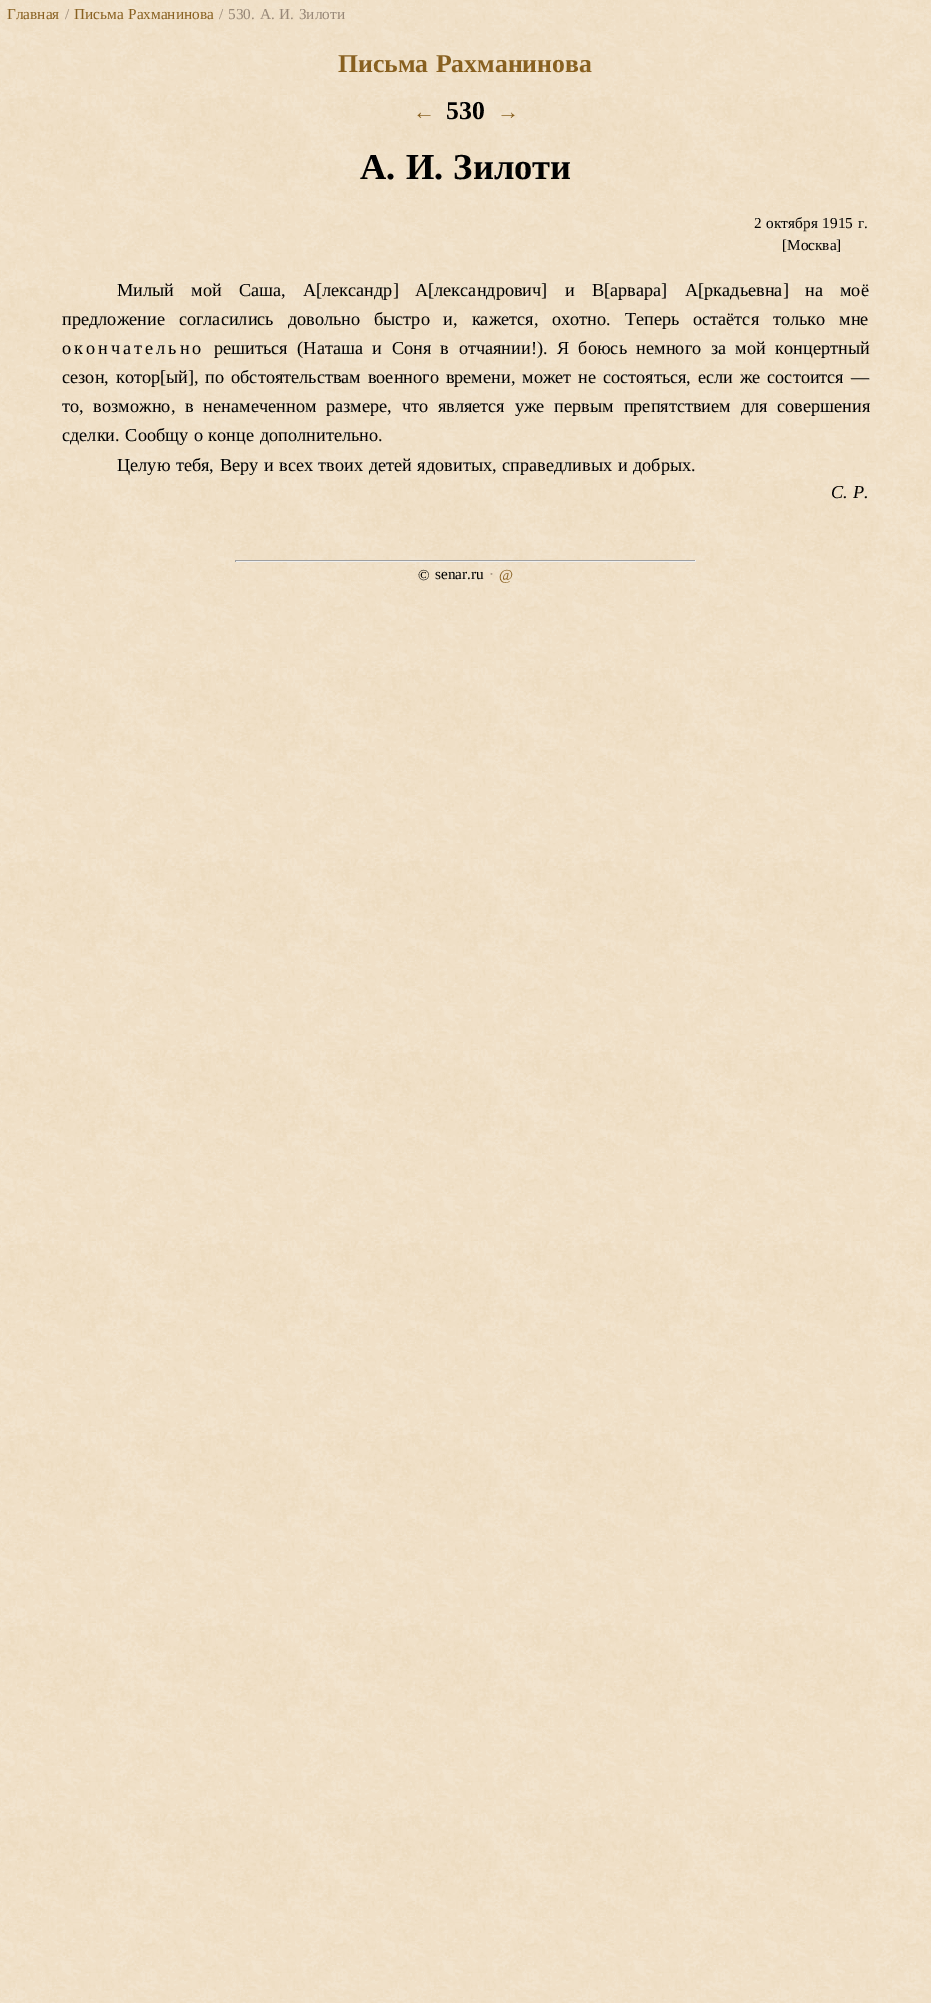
%!PS-Adobe-3.0
%%BoundingBox: 0 0 931 2003
%%LanguageLevel: 3
%%Pages: 1
%%EndComments
%%BeginProlog
/m { moveto } bind def
/fn { [ exch dup neg 0 0 3 -1 roll 0 0 ] selectfont } def
/tx { moveto show } def
/bx { rectfill } def
/im { 5 dict begin { /h /w /y /x /name } { exch def } forall
  gsave x y translate w h scale
  w h 8 [w 0 0 h 0 0] name (r) file false 3 colorimage grestore end } def
%%EndProlog
%%BeginSetup
<< /PageSize [931 2003] >> setpagedevice
%%EndSetup
%%Page: 1 1
0 2003 translate 1 -1 scale
4 setmiterlimit
1 setgray
0 0 931 2003 bx
(image0.raw) 0 0 931 2003 im
/LiberationSerif-Regular 15.25 fn
0.533 0.376 0.125 setrgbcolor
(Главная) 7 19 tx
0.596 0.533 0.471 setrgbcolor
(/) 65 19 tx
0.533 0.376 0.125 setrgbcolor
74 19 m 1 0 32 (Письма Рахманинова) widthshow
0.596 0.533 0.471 setrgbcolor
219 19 m 1 0 32 (/ 530. А. И. Зилоти) widthshow
/LiberationSerif-Bold 25.75 fn
0.533 0.376 0.125 setrgbcolor
338 72 m 1 0 32 (Письма Рахманинова) widthshow
/LiberationSerif-Bold 22 fn
(←) 413 119 tx
/LiberationSerif-Bold 25.75 fn
0 setgray
(530) 446 119 tx
/LiberationSerif-Bold 22 fn
0.533 0.376 0.125 setrgbcolor
(→) 497 119 tx
/LiberationSerif-Bold 36.5 fn
0 setgray
360 179 m 1 0 32 (А. И. Зилоти) widthshow
/LiberationSerif-Regular 15.25 fn
754 228 m 1 0 32 (2 октября 1915 г.) widthshow
([Москва]) 782 250 tx
/LiberationSerif-Regular 18.25 fn
117 296 m 12.5 0 32 (Милый мой Саша, А) widthshow
([лександр]) 316 296 tx
(А[лександрович]) 415 296 tx
565 296 m 12.5 0 32 (и В) widthshow
([арвара]) 604 296 tx
(А[ркадьевна]) 685 296 tx
805 296 m 12.5 0 32 (на моё) widthshow
62 325 m 9.25 0 32 (предложение согласились довольно быстро и, кажется, охотно. Теперь остаётся только мне) widthshow
62 354 m 3 0 (окончательно) ashow
214 354 m 4.9 0 32 (решиться \(Наташа и Соня в отчаянии!\). Я боюсь немного за мой концертный) widthshow
62 383 m 2.25 0 32 (сезон, котор) widthshow
([ый]) 160 383 tx
194 383 m 2.25 0 32 (, по обстоятельствам военного времени, может не состояться, если же состоится —) widthshow
62 412 m 5.25 0 32 (то, возможно, в ненамеченном размере, что является уже первым препятствием для совершения) widthshow
62 441 m 1 0 32 (сделки. Сообщу о конце дополнительно.) widthshow
117 471 m 1 0 32 (Целую тебя, Веру и всех твоих детей ядовитых, справедливых и добрых.) widthshow
/LiberationSerif-Italic 18.25 fn
831 498 m 1 0 32 (С. Р.) widthshow
0.624 setgray
235 560 461 1 bx
0.933 setgray
695 560 1 2 bx
235 561 461 1 bx
0.624 setgray
235 560 1 2 bx
/LiberationSerif-Regular 15.25 fn
0 setgray
(©) 418 580 tx
(senar.ru) 435 579 tx
0.596 0.533 0.471 setrgbcolor
(·) 489 579 tx
0.533 0.376 0.125 setrgbcolor
(@) 499 580 tx
showpage
%%EOF
